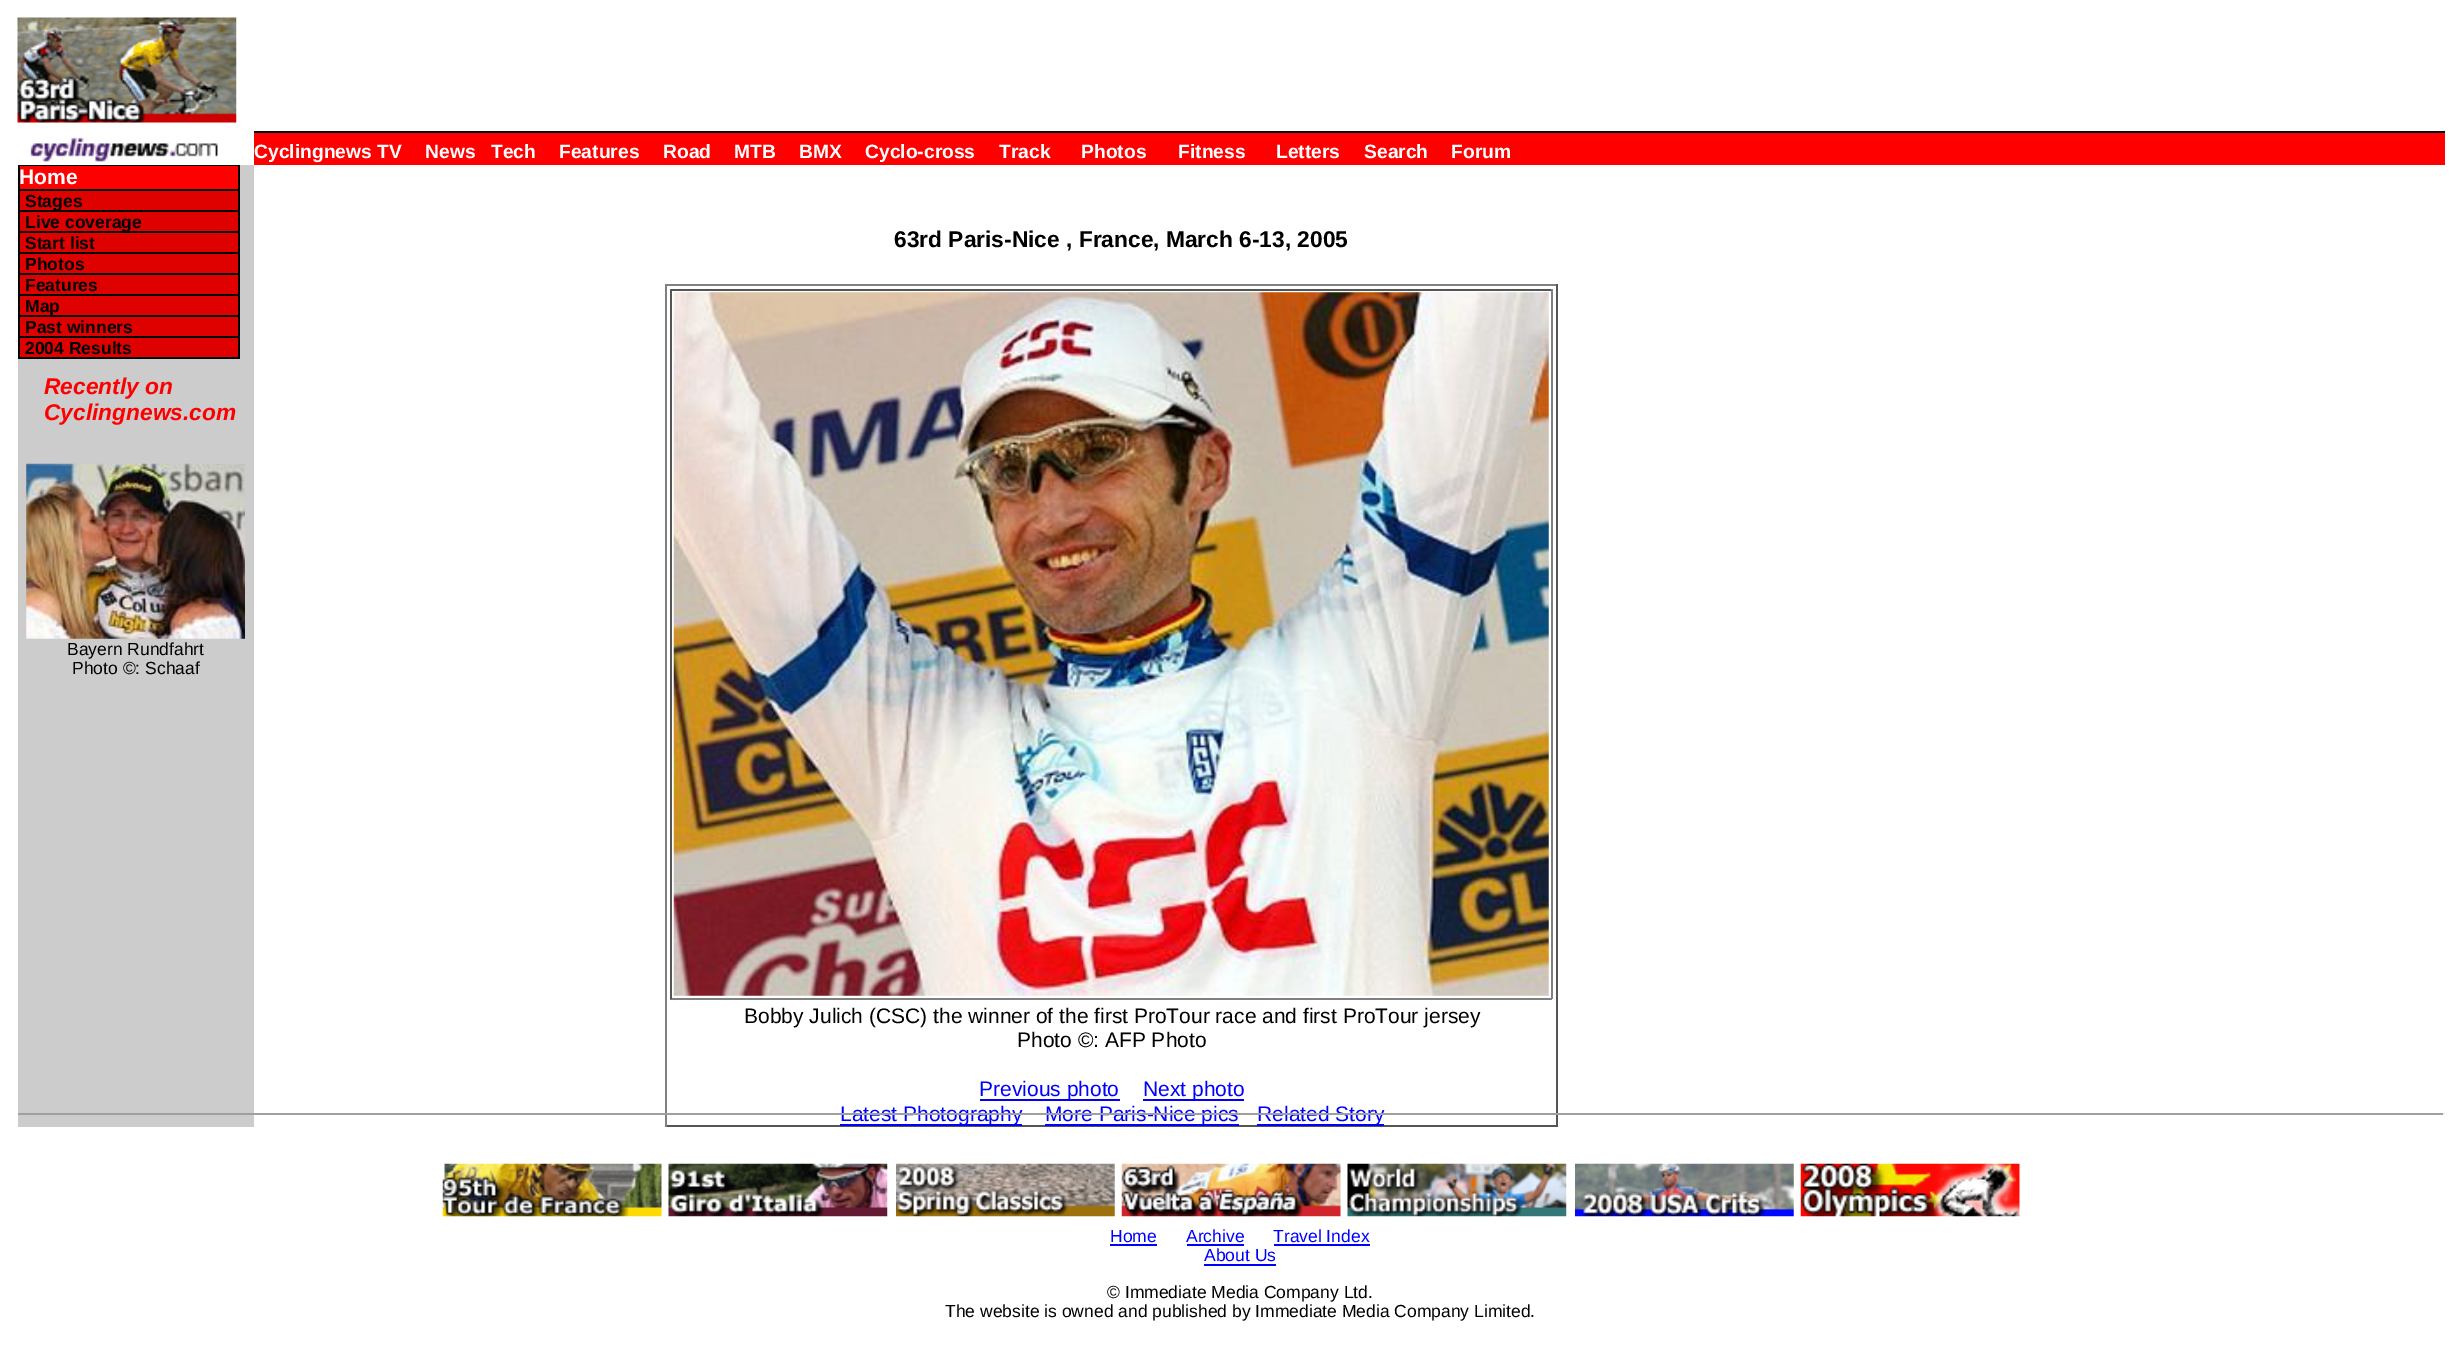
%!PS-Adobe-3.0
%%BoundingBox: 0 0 2453 1366
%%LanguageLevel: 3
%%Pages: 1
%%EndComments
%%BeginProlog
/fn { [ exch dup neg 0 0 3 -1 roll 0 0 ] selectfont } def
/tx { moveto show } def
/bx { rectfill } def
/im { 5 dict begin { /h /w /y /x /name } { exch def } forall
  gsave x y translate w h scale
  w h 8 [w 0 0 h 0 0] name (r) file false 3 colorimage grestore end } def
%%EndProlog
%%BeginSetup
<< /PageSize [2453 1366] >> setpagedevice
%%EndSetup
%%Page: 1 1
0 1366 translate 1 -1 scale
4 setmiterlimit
1 setgray
0 0 2453 1366 bx
(image0.raw) 17 17 220 106 im
(image1.raw) 30 137 188 25 im
1 0 0 setrgbcolor
254 133 2191 32 bx
0 setgray
254 131 2191 2 bx
/LiberationSans-Bold 19.25 fn
1 setgray
(Cyclingnews TV) 254 158 tx
(News) 425 158 tx
(Tech) 491 158 tx
(Features) 559 158 tx
(Road) 663 158 tx
(MTB) 734 158 tx
(BMX) 799 158 tx
(Cyclo-cross) 865 158 tx
(Track) 999 158 tx
(Photos) 1081 158 tx
(Fitness) 1178 158 tx
(Letters) 1276 158 tx
(Search) 1364 158 tx
(Forum) 1451 158 tx
0.8 setgray
18 165 236 962 bx
0 setgray
18 165 222 1 bx
1 0 0 setrgbcolor
20 166 218 23 bx
0 setgray
238 166 2 193 bx
18 189 222 2 bx
18 166 2 25 bx
/LiberationSans-Bold 21 fn
1 setgray
(Home) 19 184 tx
0.875 0 0 setrgbcolor
20 191 218 19 bx
0 setgray
18 210 222 2 bx
18 191 2 21 bx
/LiberationSans-Bold 17.5 fn
(Stages) 25 207 tx
0.875 0 0 setrgbcolor
20 212 218 19 bx
0 setgray
18 231 222 2 bx
18 212 2 21 bx
(Live coverage) 25 228 tx
0.875 0 0 setrgbcolor
20 233 218 19 bx
0 setgray
18 252 222 2 bx
18 233 2 21 bx
(Start list) 25 249 tx
0.875 0 0 setrgbcolor
20 254 218 19 bx
0 setgray
18 273 222 2 bx
18 254 2 21 bx
(Photos) 25 270 tx
0.875 0 0 setrgbcolor
20 275 218 19 bx
0 setgray
18 294 222 2 bx
18 275 2 21 bx
(Features) 25 291 tx
0.875 0 0 setrgbcolor
20 296 218 19 bx
0 setgray
18 315 222 2 bx
18 296 2 21 bx
(Map) 25 312 tx
0.875 0 0 setrgbcolor
20 317 218 19 bx
0 setgray
18 336 222 2 bx
18 317 2 21 bx
(Past winners) 25 333 tx
0.875 0 0 setrgbcolor
20 338 218 19 bx
0 setgray
18 357 222 2 bx
18 338 2 21 bx
(2004 Results) 25 354 tx
/LiberationSans-BoldItalic 22.75 fn
1 0 0 setrgbcolor
(Recently on) 44 394 tx
(Cyclingnews.com) 44 420 tx
(image2.raw) 26 463 219 176 im
/LiberationSans-Regular 17.5 fn
0 setgray
(Bayern Rundfahrt) 67 655 tx
(Photo ©: Schaaf) 72 674 tx
/LiberationSans-Bold 22.75 fn
(63rd Paris-Nice , France, March 6-13, 2005) 894 247 tx
0.502 setgray
665 284 893 2 bx
0.333 setgray
1556 284 2 843 bx
665 1125 893 2 bx
0.502 setgray
665 284 2 843 bx
0.333 setgray
670 289 882 2 bx
0.502 setgray
1551 289 2 710 bx
670 998 882 2 bx
0.333 setgray
670 289 2 710 bx
(image3.raw) 673 292 876 704 im
/LiberationSans-Regular 21 fn
0 setgray
(Bobby Julich \(CSC\) the winner of the first ProTour race and first ProTour jersey) 744 1023 tx
(Photo ©: AFP Photo) 1017 1047 tx
0 0 1 setrgbcolor
980 1099 140 2 bx
(Previous photo) 979 1096 tx
1143 1099 101 2 bx
(Next photo) 1143 1096 tx
840 1124 182 2 bx
(Latest Photography) 840 1121 tx
1045 1124 194 2 bx
(More Paris-Nice pics) 1045 1121 tx
1257 1124 127 2 bx
(Related Story) 1257 1121 tx
0.624 setgray
18 1113 2427 2 bx
0.933 setgray
2443 1113 2 2 bx
(image4.raw) 442 1163 220 54 im
(image5.raw) 668 1163 220 54 im
(image6.raw) 896 1163 219 54 im
(image7.raw) 1121 1163 220 54 im
(image8.raw) 1347 1163 220 54 im
(image9.raw) 1575 1163 219 54 im
(image10.raw) 1800 1163 220 54 im
/LiberationSans-Regular 17.5 fn
0 0 1 setrgbcolor
(Home) 1110 1242 tx
1110 1244 47 2 bx
(Archive) 1186 1242 tx
1187 1244 57 2 bx
(Travel Index) 1273 1242 tx
1274 1244 96 2 bx
(About Us) 1204 1261 tx
1204 1264 72 2 bx
0 setgray
(© Immediate Media Company Ltd.) 1107 1298 tx
(The website is owned and published by Immediate Media Company Limited.) 945 1317 tx
showpage
%%EOF
